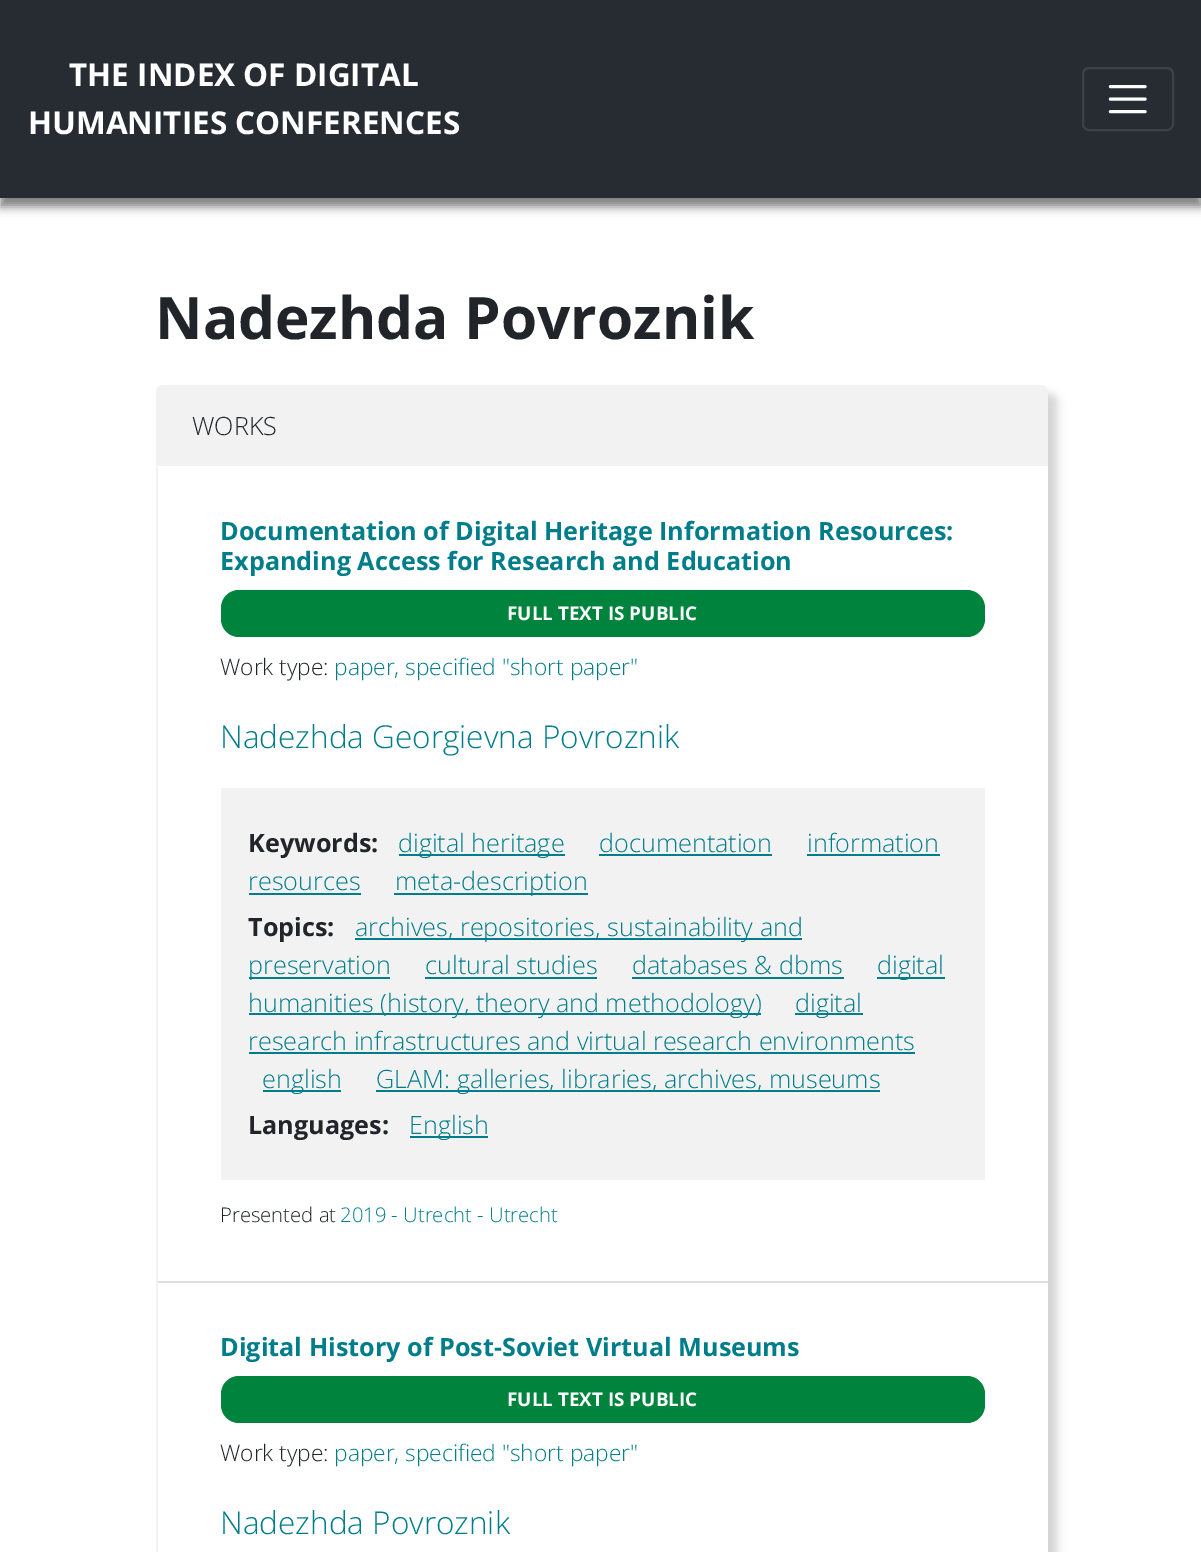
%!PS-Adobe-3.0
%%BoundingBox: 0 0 1201 1552
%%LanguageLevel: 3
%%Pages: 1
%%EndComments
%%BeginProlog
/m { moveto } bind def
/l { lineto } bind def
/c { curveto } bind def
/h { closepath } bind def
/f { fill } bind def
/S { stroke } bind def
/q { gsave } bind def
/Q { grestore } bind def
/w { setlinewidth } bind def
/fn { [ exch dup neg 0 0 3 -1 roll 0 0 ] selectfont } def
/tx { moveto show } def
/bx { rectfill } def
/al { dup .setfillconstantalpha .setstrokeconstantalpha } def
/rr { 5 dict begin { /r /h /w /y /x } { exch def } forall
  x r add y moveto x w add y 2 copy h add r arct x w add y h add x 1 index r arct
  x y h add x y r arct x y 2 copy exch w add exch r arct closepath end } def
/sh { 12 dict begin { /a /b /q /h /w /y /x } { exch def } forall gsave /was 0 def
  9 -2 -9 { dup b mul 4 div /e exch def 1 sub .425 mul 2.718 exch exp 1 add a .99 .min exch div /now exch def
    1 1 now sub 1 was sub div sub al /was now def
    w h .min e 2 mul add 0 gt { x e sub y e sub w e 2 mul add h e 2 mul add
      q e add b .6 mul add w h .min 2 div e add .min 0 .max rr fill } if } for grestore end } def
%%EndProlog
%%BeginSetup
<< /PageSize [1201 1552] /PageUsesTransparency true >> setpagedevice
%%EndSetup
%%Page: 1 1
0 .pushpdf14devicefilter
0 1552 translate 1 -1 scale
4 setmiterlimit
1 setgray
0 0 1201 1552 bx
0.502 setgray
0 9 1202 198 0 4.5 1 sh
0.149 0.173 0.192 setrgbcolor
0 0 1201 198 bx
/OpenSans-Bold 31.5 fn
1 setgray
(THE INDEX OF DIGITAL) 69 86 tx
(HUMANITIES CONFERENCES) 28 134 tx
0.235 0.255 0.275 setrgbcolor
2 w
1083 68 90 62 6 rr S
1 setgray
3.1 w
1 setlinecap
1110.5 86.5 m 1145 86.5 l 1110.5 99 m 1145 99 l 1110.5 111.5 m 1145 111.5 l S
/OpenSans-Bold 58.5 fn
0.129 0.145 0.161 setrgbcolor
(Nadezhda Povroznik) 155 339 tx
q
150 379 m 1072 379 l 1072 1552 l 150 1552 l h 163 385 m 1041 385 l 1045 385 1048 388 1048 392 c 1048 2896 l 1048 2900 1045 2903 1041 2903 c 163 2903 l 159 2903 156 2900 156 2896 c 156 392 l 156 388 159 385 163 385 c h eoclip newpath
0.827 setgray
165 394 892 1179 7 4.5 1 sh
Q
0.949 setgray
163 385 m 1041 385 l 1045 385 1048 388 1048 392 c 1048 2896 l 1048 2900 1045 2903 1041 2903 c 163 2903 l 159 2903 156 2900 156 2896 c 156 392 l 156 388 159 385 163 385 c h 163 387 m 1041 387 l 1045 387 1048 389 1048 392 c 1048 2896 l 1048 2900 1045 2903 1041 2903 c 163 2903 l 160 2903 158 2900 158 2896 c 158 392 l 158 389 160 387 163 387 c h eofill
163 387 m 1043 387 l 1046 387 1048 389 1048 392 c 1048 466 l 158 466 l 158 392 l 158 389 160 387 163 387 c h f
/OpenSans-Light 25.2 fn
0.129 0.145 0.161 setrgbcolor
(WORKS) 192 435 tx
0.875 setgray
158 1281 890 2 bx
/OpenSans-Bold 25.2 fn
0 0.49 0.541 setrgbcolor
(Documentation of Digital Heritage Information Resources:) 220 540 tx
(Expanding Access for Research and Education) 220 570 tx
0 0.518 0.239 setrgbcolor
221 590 764 47 18 rr f
/OpenSans-Bold 18.9 fn
1 setgray
(FULL TEXT IS PUBLIC) 507 620 tx
/OpenSans-Light 22.75 fn
0.129 0.145 0.161 setrgbcolor
(Work type:) 220 675 tx
0 0.49 0.541 setrgbcolor
(paper, specified "short paper") 334 675 tx
/OpenSans-Light 31.5 fn
(Nadezhda Georgievna Povroznik) 220 748 tx
0.949 setgray
221 788 764 392 bx
/OpenSans-Bold 25.2 fn
0.129 0.145 0.161 setrgbcolor
(Keywords:) 248 852 tx
0 0.49 0.541 setrgbcolor
399 854 166 2 bx
/OpenSans-Light 25.2 fn
(digital heritage) 398 852 tx
(documentation) 599 852 tx
599 854 173 2 bx
(information) 807 852 tx
807 854 133 2 bx
(resources) 248 890 tx
249 893 112 2 bx
394 893 194 2 bx
(meta-description) 395 890 tx
/OpenSans-Bold 25.2 fn
0.129 0.145 0.161 setrgbcolor
(Topics:) 248 936 tx
0 0.49 0.541 setrgbcolor
355 938 447 2 bx
/OpenSans-Light 25.2 fn
(archives, repositories, sustainability and) 355 936 tx
249 977 141 2 bx
(preservation) 248 974 tx
(cultural studies) 425 974 tx
425 977 172 2 bx
(databases & dbms) 632 974 tx
632 977 212 2 bx
877 977 68 2 bx
(digital) 877 974 tx
249 1013 512 2 bx
(humanities \(history, theory and methodology\)) 248 1012 tx
795 1013 68 2 bx
(digital) 795 1012 tx
(research infrastructures and virtual research environments) 248 1050 tx
249 1052 666 2 bx
263 1090 78 2 bx
(english) 262 1088 tx
376 1090 504 2 bx
(GLAM: galleries, libraries, archives, museums) 376 1088 tx
/OpenSans-Bold 25.2 fn
0.129 0.145 0.161 setrgbcolor
(Languages:) 248 1134 tx
0 0.49 0.541 setrgbcolor
410 1136 78 2 bx
/OpenSans-Light 25.2 fn
(English) 409 1134 tx
/OpenSans-Light 20.25 fn
0.129 0.145 0.161 setrgbcolor
(Presented at) 220 1222 tx
0 0.49 0.541 setrgbcolor
(2019 - Utrecht - Utrecht) 340 1222 tx
/OpenSans-Bold 25.2 fn
(Digital History of Post-Soviet Virtual Museums) 220 1356 tx
0 0.518 0.239 setrgbcolor
221 1376 764 47 18 rr f
/OpenSans-Bold 18.9 fn
1 setgray
(FULL TEXT IS PUBLIC) 507 1406 tx
/OpenSans-Light 22.75 fn
0.129 0.145 0.161 setrgbcolor
(Work type:) 220 1461 tx
0 0.49 0.541 setrgbcolor
(paper, specified "short paper") 334 1461 tx
/OpenSans-Light 31.5 fn
(Nadezhda Povroznik) 220 1534 tx
.poppdf14devicefilter showpage
%%EOF
